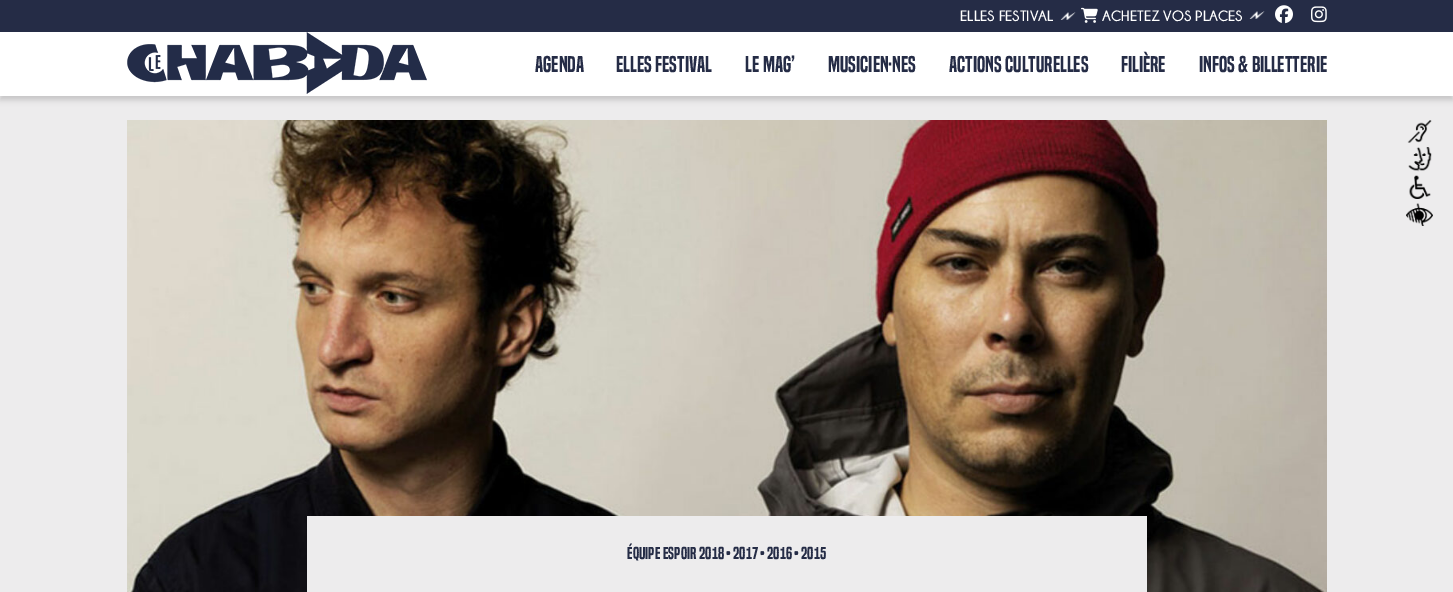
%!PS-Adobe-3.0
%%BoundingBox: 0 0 1453 592
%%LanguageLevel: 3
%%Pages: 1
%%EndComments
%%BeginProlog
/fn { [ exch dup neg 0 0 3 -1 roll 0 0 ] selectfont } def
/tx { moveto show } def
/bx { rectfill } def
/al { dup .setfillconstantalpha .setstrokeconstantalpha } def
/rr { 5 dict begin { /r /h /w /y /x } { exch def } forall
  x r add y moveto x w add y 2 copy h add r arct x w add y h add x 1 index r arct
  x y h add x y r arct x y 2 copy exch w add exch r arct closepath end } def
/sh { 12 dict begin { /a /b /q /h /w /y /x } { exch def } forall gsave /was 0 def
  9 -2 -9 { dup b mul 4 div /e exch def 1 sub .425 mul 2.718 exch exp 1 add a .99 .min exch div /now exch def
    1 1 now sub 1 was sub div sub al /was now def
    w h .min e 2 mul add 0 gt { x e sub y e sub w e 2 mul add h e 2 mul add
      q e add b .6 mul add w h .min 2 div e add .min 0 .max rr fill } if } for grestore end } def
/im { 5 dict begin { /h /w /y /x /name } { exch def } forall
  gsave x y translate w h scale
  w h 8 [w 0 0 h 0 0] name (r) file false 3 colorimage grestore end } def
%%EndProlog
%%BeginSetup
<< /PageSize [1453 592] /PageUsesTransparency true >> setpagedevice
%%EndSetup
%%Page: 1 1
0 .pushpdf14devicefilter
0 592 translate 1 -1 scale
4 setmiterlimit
0.929 0.925 0.929 setrgbcolor
0 0 1453 592 bx
0.392 setgray
0 36 1453 64 0 3 0.3 sh
0.145 0.173 0.275 setrgbcolor
0 0 1453 32 bx
/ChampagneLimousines-Bold 15 fn
1 setgray
(ELLES FESTIVAL) 960 21 tx
(image0.raw) 1060 12 16 8 im
(image1.raw) 1081 7 17 16 im
(ACHETEZ VOS PLACES) 1102 21 tx
(image0.raw) 1249 11 16 8 im
(image2.raw) 1275 5 18 19 im
(image3.raw) 1311 6 16 17 im
0 32 1453 64 bx
(image4.raw) 127 32 300 62 im
/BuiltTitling-Regular 21 fn
0.145 0.173 0.275 setrgbcolor
(AGENDA) 535 72 tx
(ELLES FESTIVAL) 616 72 tx
(LE MAG’) 745 72 tx
(MUSICIEN·NES) 828 72 tx
(ACTIONS CULTURELLES) 949 72 tx
(FILIÈRE) 1121 72 tx
(INFOS & BILLETTERIE) 1199 72 tx
(image5.raw) 1406 120 27 106 im
(image6.raw) 127 120 1200 472 im
0.929 0.925 0.929 setrgbcolor
307 516 840 76 bx
/BuiltTitling-Regular 16 fn
0.145 0.173 0.275 setrgbcolor
(ÉQUIPE ESPOIR 2018) 627 559 tx
(•) 726 559 tx
(2017) 733 559 tx
(•) 760 559 tx
(2016) 767 559 tx
(•) 794 559 tx
(2015) 801 559 tx
.poppdf14devicefilter showpage
%%EOF
